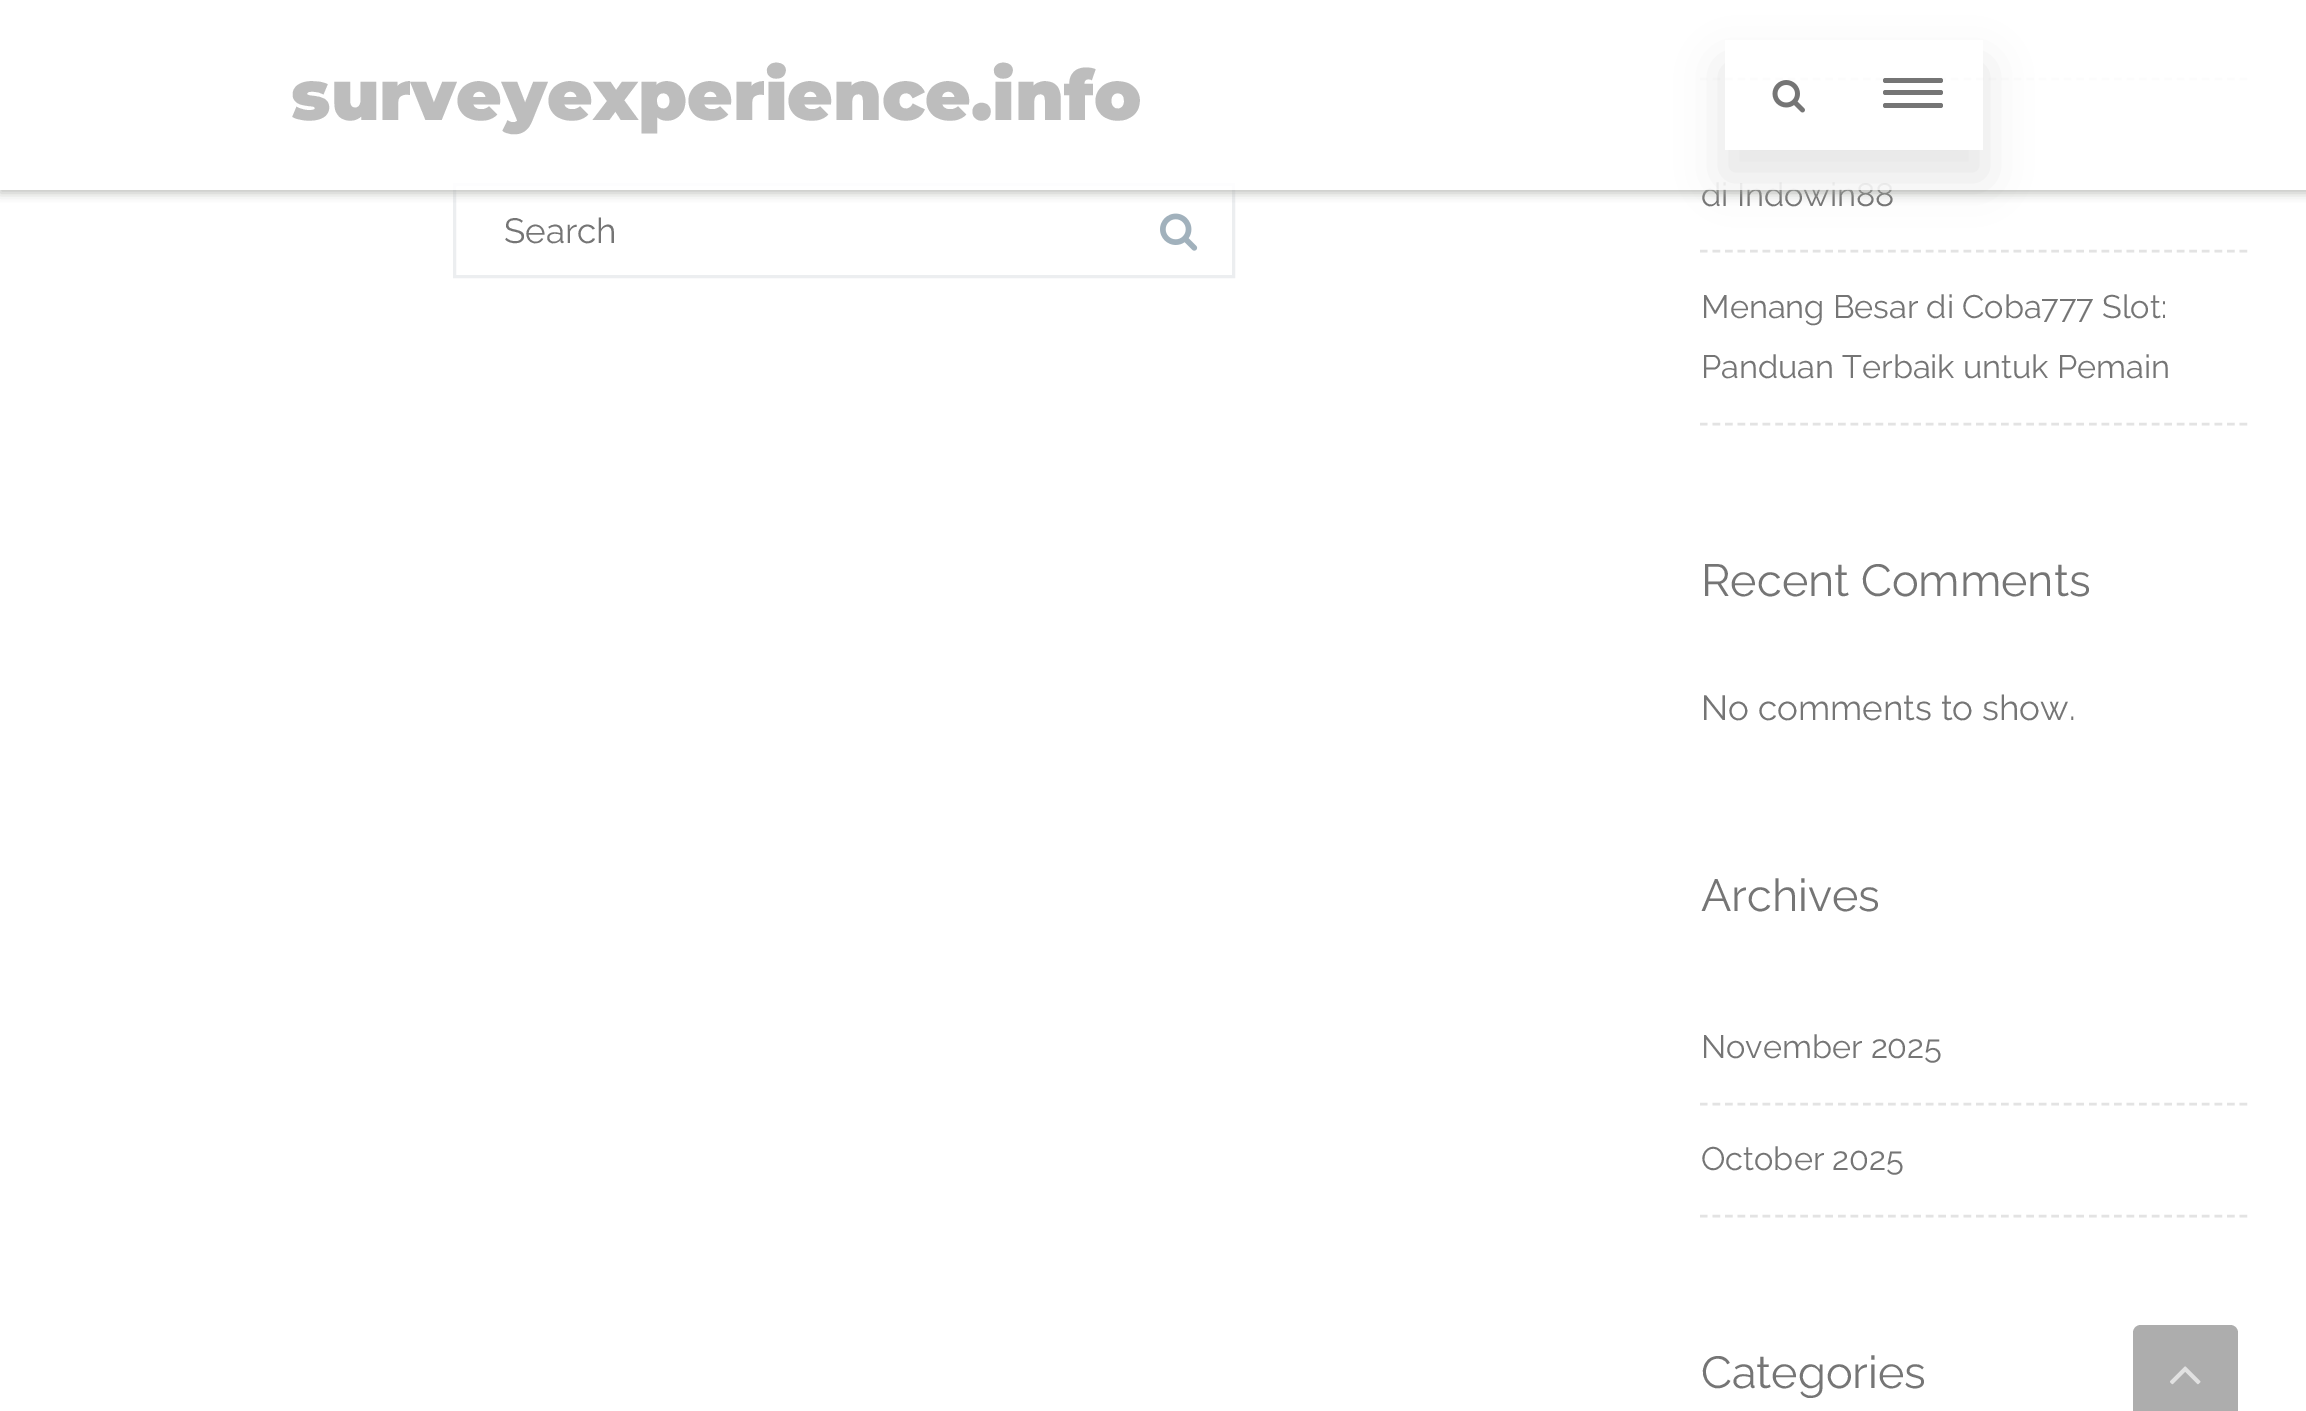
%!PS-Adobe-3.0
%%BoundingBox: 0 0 2306 1411
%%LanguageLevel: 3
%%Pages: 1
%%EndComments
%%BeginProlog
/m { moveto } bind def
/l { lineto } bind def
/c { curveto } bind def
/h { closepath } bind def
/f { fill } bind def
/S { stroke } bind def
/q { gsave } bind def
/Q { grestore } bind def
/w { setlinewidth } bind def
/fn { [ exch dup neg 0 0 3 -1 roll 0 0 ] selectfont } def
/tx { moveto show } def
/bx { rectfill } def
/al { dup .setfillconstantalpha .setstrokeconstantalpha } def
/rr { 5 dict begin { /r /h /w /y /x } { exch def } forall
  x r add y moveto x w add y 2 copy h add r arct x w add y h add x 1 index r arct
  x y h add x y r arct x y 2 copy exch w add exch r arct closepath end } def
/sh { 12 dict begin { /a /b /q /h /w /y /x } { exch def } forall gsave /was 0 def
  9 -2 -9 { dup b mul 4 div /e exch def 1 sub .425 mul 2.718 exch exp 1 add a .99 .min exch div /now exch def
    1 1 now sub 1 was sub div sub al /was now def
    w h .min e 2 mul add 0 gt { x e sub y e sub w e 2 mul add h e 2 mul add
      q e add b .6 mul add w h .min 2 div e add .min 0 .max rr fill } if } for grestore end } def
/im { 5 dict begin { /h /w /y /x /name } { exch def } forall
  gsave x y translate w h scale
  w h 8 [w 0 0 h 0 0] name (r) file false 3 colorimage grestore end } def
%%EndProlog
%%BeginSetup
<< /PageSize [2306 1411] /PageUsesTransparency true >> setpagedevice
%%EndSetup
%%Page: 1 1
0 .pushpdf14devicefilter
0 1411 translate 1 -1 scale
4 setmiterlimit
1 setgray
0 0 2306 1411 bx
0.925 0.933 0.941 setrgbcolor
3 w
454.5 184.5 779 92 rectstroke
0.89 setgray
2.5 w
[7.5 5.05] 0 setdash
1700 79 m 2247.5 79 l S
/Raleway-Regular 32.5 fn
0.459 setgray
(di Indowin88) 1701 206 tx
0.9 al
1 setgray
453 77 1795 113 bx
q
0 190 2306 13 rectclip
1 al
0.655 0.663 0.643 setrgbcolor
0 3 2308 190 0 5 0.75 sh
Q
/Montserrat-Black 70 fn
1 al
0.741 setgray
(surveyexperience.info) 291 120 tx
q
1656 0 m 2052 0 l 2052 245 l 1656 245 l h 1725 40 m 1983 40 l 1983 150 l 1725 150 l h eoclip newpath
0.251 setgray
1723 65 262 113 0 22 0.13 sh
Q
(image0.raw) 1772 80 33 33 im
0.459 setgray
1883 78 60 5 2.5 rr f
1883 90 60 5 2.5 rr f
1883 103 60 5 2.5 rr f
/Raleway-Regular 35 fn
(Search) 504 243 tx
(image1.raw) 1160 213 38 38 im
0.89 setgray
1700 251 m 2247.5 251 l S
1700 424 m 2247.5 424 l S
/Raleway-Regular 32.5 fn
0.459 setgray
(Menang Besar di Coba777 Slot:) 1701 318 tx
(Panduan Terbaik untuk Pemain) 1701 378 tx
/Raleway-Regular 45 fn
(Recent Comments) 1701 596 tx
/Raleway-Regular 35 fn
(No comments to show.) 1701 720 tx
/Raleway-Regular 45 fn
(Archives) 1701 911 tx
0.89 setgray
1700 1104 m 2247.5 1104 l S
/Raleway-Regular 32.5 fn
0.459 setgray
(November 2025) 1701 1058 tx
0.89 setgray
1700 1216 m 2247.5 1216 l S
0.459 setgray
(October 2025) 1701 1170 tx
/Raleway-Regular 45 fn
(Categories) 1701 1388 tx
0.678 setgray
2141 1325 m 2230 1325 l 2234.5 1325 2238 1328.5 2238 1333 c 2238 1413 l 2133 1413 l 2133 1333 l 2133 1328.5 2136.5 1325 2141 1325 c h f
(image2.raw) 2170 1366 31 19 im
.poppdf14devicefilter showpage
%%EOF
